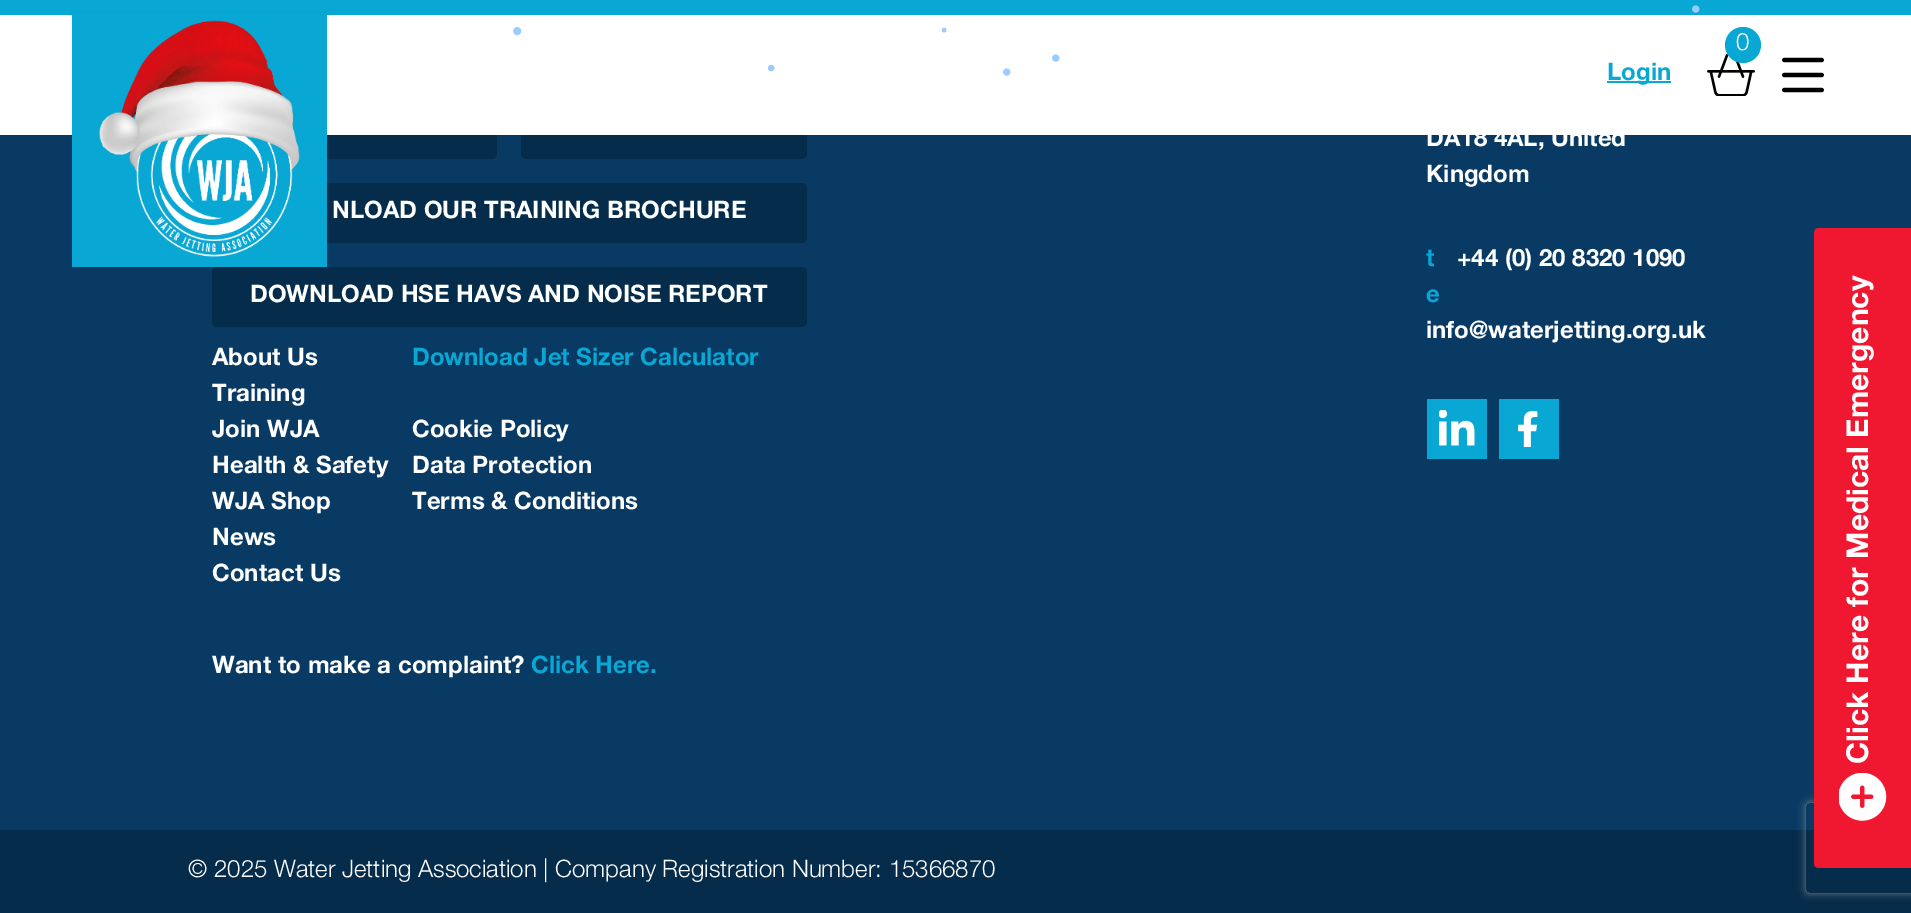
%!PS-Adobe-3.0
%%BoundingBox: 0 0 1911 913
%%LanguageLevel: 3
%%Pages: 1
%%EndComments
%%BeginProlog
/m { moveto } bind def
/l { lineto } bind def
/c { curveto } bind def
/h { closepath } bind def
/f { fill } bind def
/q { gsave } bind def
/Q { grestore } bind def
/fn { [ exch dup neg 0 0 3 -1 roll 0 0 ] selectfont } def
/tx { moveto show } def
/bx { rectfill } def
/al { dup .setfillconstantalpha .setstrokeconstantalpha } def
/ci { newpath 0 360 arc closepath } def
/rr { 5 dict begin { /r /h /w /y /x } { exch def } forall
  x r add y moveto x w add y 2 copy h add r arct x w add y h add x 1 index r arct
  x y h add x y r arct x y 2 copy exch w add exch r arct closepath end } def
/sh { 12 dict begin { /a /b /q /h /w /y /x } { exch def } forall gsave /was 0 def
  9 -2 -9 { dup b mul 4 div /e exch def 1 sub .425 mul 2.718 exch exp 1 add a .99 .min exch div /now exch def
    1 1 now sub 1 was sub div sub al /was now def
    w h .min e 2 mul add 0 gt { x e sub y e sub w e 2 mul add h e 2 mul add
      q e add b .6 mul add w h .min 2 div e add .min 0 .max rr fill } if } for grestore end } def
/im { 5 dict begin { /h /w /y /x /name } { exch def } forall
  gsave x y translate w h scale
  w h 8 [w 0 0 h 0 0] name (r) file false 3 colorimage grestore end } def
%%EndProlog
%%BeginSetup
<< /PageSize [1911 913] /PageUsesTransparency true >> setpagedevice
%%EndSetup
%%Page: 1 1
0 .pushpdf14devicefilter
0 913 translate 1 -1 scale
4 setmiterlimit
0.035 0.227 0.388 setrgbcolor
0 0 1911 913 bx
0.02 0.173 0.294 setrgbcolor
212 63 285 96 5 rr f
521 63 286 96 5 rr f
0 setgray
0 2 1911 135 0 1.5 0.05 sh
0.035 0.655 0.831 setrgbcolor
0 0 1911 15 bx
/LiberationSans-Regular 27 fn
0.6 0.8 1 setrgbcolor
(•) 1691 18 tx
1 setgray
0 15 1911 120 bx
/LiberationSans-Regular 30 fn
0.6 0.8 1 setrgbcolor
(•) 512 41 tx
/LiberationSans-Regular 18 fn
(•) 941 36 tx
/LiberationSans-Regular 27 fn
(•) 1051 67 tx
/LiberationSans-Regular 24 fn
(•) 767 76 tx
/LiberationSans-Regular 27 fn
(•) 1002 81 tx
0.02 0.173 0.294 setrgbcolor
212 183 595 60 5 rr f
212 267 595 60 5 rr f
0 setgray
72 14 255 255 0 1.5 0.05 sh
0.035 0.655 0.831 setrgbcolor
72 13 255 254 bx
(image0.raw) 99 20 201 237 im
(image1.raw) 1707 54 48 42 im
1743 45 18 ci f
/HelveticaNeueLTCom-Light 24 fn
1 setgray
(0) 1736 50 tx
0.035 0.655 0.831 setrgbcolor
1607 81 64 2 bx
/HelveticaNeueLTCom-Bold 24 fn
(Login) 1607 80 tx
(image2.raw) 1782 57 42 36 im
1 setgray
(NLOAD OUR TRAINING BROCHURE) 332 218 tx
(DOWNLOAD HSE HAVS AND NOISE REPORT) 250 302 tx
(About Us) 212 365 tx
(Training) 212 401 tx
(Join WJA) 212 437 tx
(Health & Safety) 212 473 tx
(WJA Shop) 212 509 tx
(News) 212 545 tx
(Contact Us) 212 581 tx
0.035 0.655 0.831 setrgbcolor
(Download Jet Sizer Calculator) 412 365 tx
1 setgray
(Cookie Policy) 412 437 tx
(Data Protection) 412 473 tx
(Terms & Conditions) 412 509 tx
(Want to make a complaint?) 212 673 tx
0.035 0.655 0.831 setrgbcolor
(Click Here.) 531 673 tx
1 setgray
(DA18 4AL, United) 1426 146 tx
(Kingdom) 1426 182 tx
0.035 0.655 0.831 setrgbcolor
(t) 1426 266 tx
1 setgray
(+44 \(0\) 20 8320 1090) 1457 266 tx
0.035 0.655 0.831 setrgbcolor
(e) 1426 302 tx
1 setgray
(info@waterjetting.org.uk) 1426 338 tx
0.035 0.655 0.831 setrgbcolor
1427 399 60 60 bx
(image3.raw) 1439 410 36 36 im
1499 399 60 60 bx
(image4.raw) 1518 411 20 36 im
0.02 0.173 0.294 setrgbcolor
0 830 1911 83 bx
/HelveticaNeueLTCom-Light 24 fn
1 setgray
(© 2025 Water Jetting Association | Company Registration Number: 15366870) 188 877 tx
q
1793 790 m 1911 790 l 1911 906 l 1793 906 l h 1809 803 m 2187 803 l 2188.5 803 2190 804.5 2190 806 c 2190 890 l 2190 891.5 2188.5 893 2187 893 c 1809 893 l 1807.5 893 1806 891.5 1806 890 c 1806 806 l 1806 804.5 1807.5 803 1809 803 c h eoclip newpath
0.502 setgray
1806 803 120 90 3 4 1 sh
Q
0.941 0.094 0.188 setrgbcolor
1911 868 m 1819 868 l 1816 868 1814 866 1814 864 c 1814 233 l 1814 230 1816 228 1819 228 c 1911 228 l h f
/HelveticaNeueLTCom-Bold 30 fn
1 setgray
q 1868 764 translate -90 rotate 0 0 m (Click Here for Medical Emergency) show Q
(image5.raw) 1839 773 48 48 im
.poppdf14devicefilter showpage
%%EOF
